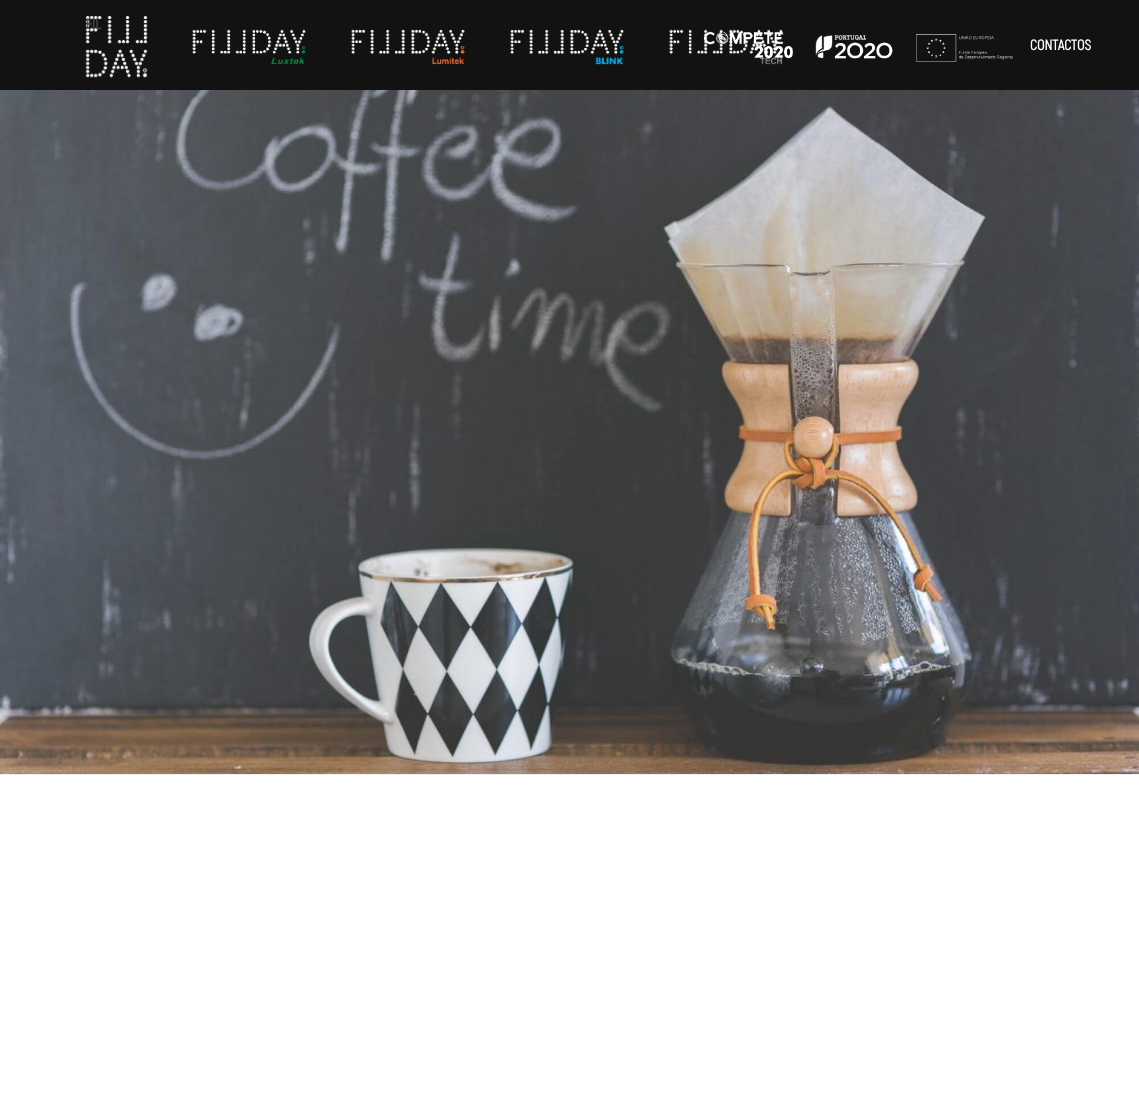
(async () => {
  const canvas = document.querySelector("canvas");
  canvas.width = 1139;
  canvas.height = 1097;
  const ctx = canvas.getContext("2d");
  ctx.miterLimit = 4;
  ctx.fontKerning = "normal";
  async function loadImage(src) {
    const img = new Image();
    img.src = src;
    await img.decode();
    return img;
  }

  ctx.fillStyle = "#ffffff";
  ctx.fillRect(0, 0, 1139, 1097);
  ctx.fillStyle = "#121212";
  ctx.fillRect(0, 0, 1139, 90);
  ctx.drawImage(await loadImage("img/1.png"), 85, 16, 63, 62);
  ctx.drawImage(await loadImage("img/2.png"), 192, 29, 114, 36);
  ctx.drawImage(await loadImage("img/3.png"), 351, 29, 114, 36);
  ctx.drawImage(await loadImage("img/4.png"), 510, 29, 114, 36);
  ctx.drawImage(await loadImage("img/5.png"), 669, 29, 114, 36);
  ctx.drawImage(await loadImage("img/6.png"), 703, 31, 310, 31);
  ctx.fillStyle = "#eeeeee";
  ctx.fillRect(0, 774, 1139, 1);
  ctx.drawImage(await loadImage("img/7.png"), 0, 90, 1139, 684);
  ctx.font = "bold 14.5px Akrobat";
  ctx.fillStyle = "#4a4a4a";
  ctx.fillText("FIL", 86, 29);
  ctx.fillStyle = "#ffffff";
  ctx.fillText("CONTACTOS", 1030, 50);
})();
